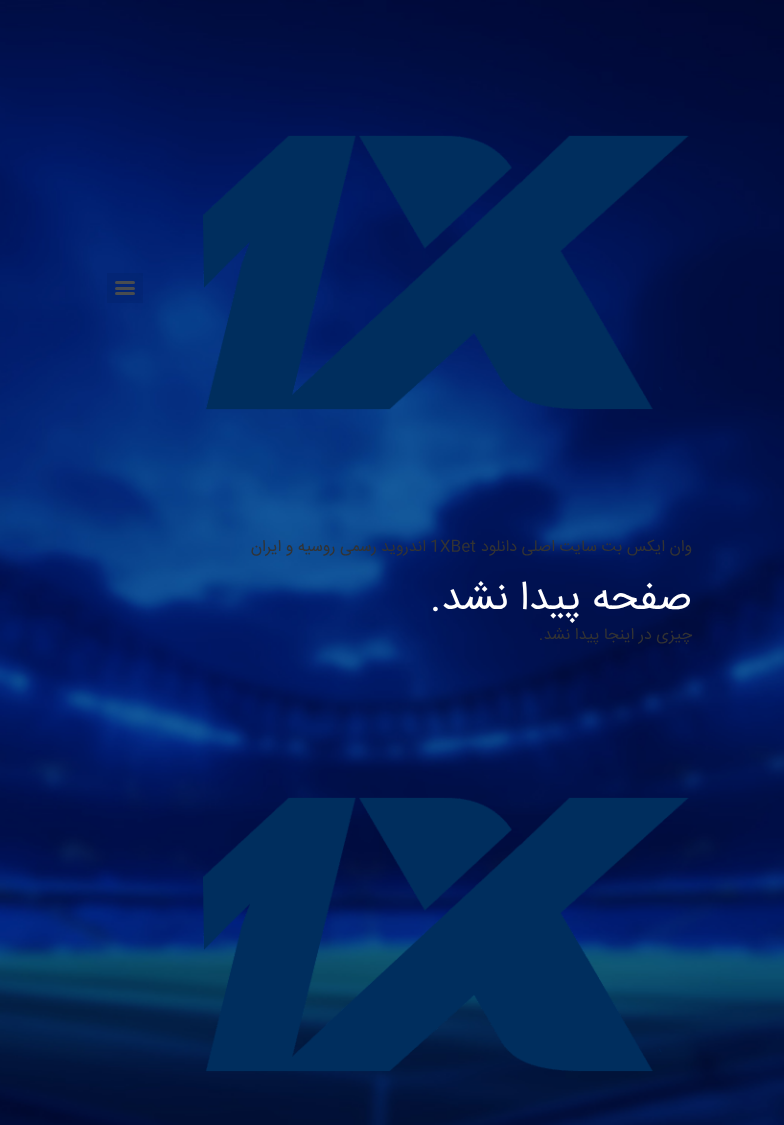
(async () => {
  const canvas = document.querySelector("canvas");
  canvas.width = 784;
  canvas.height = 1125;
  const ctx = canvas.getContext("2d");
  ctx.miterLimit = 4;
  ctx.fontKerning = "normal";
  async function loadImage(src) {
    const img = new Image();
    img.src = src;
    await img.decode();
    return img;
  }

  ctx.fillStyle = "#ffffff";
  ctx.fillRect(0, 0, 784, 1125);
  ctx.drawImage(await loadImage("img/1.png"), 0, 0, 784, 1125);
  ctx.fillStyle = "rgba(0, 0, 0, 0.05)";
  ctx.fillRect(107, 273, 36, 30);
  ctx.fillStyle = "#494c4f";
  ctx.beginPath();
  ctx.roundRect(115, 287, 20, 3, 1.5);
  ctx.fill();
  ctx.beginPath();
  ctx.roundRect(115, 281, 20, 3, 1.5);
  ctx.fill();
  ctx.beginPath();
  ctx.roundRect(115, 292, 20, 3, 1.5);
  ctx.fill();
  ctx.drawImage(await loadImage("img/2.png"), 203, 135, 486, 275);
  ctx.drawImage(await loadImage("img/3.png"), 203, 797, 486, 275);
  ctx.direction = "rtl";
  ctx.font = "16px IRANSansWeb";
  ctx.fillStyle = "#333333";
  ctx.fillText("وان ایکس بت سایت اصلی دانلود", 692, 551);
  ctx.direction = "ltr";
  ctx.fillText("1XBet", 430, 551);
  ctx.direction = "rtl";
  ctx.fillText("اندروید رسمی روسیه و ایران", 426, 551);
  ctx.font = "40px IRANSansWeb";
  ctx.fillStyle = "#ffffff";
  ctx.fillText("صفحه پیدا نشد.", 692, 609);
  ctx.font = "16px IRANSansWeb";
  ctx.fillStyle = "#333333";
  ctx.fillText("چیزی در اینجا پیدا نشد.", 692, 639);
})();
